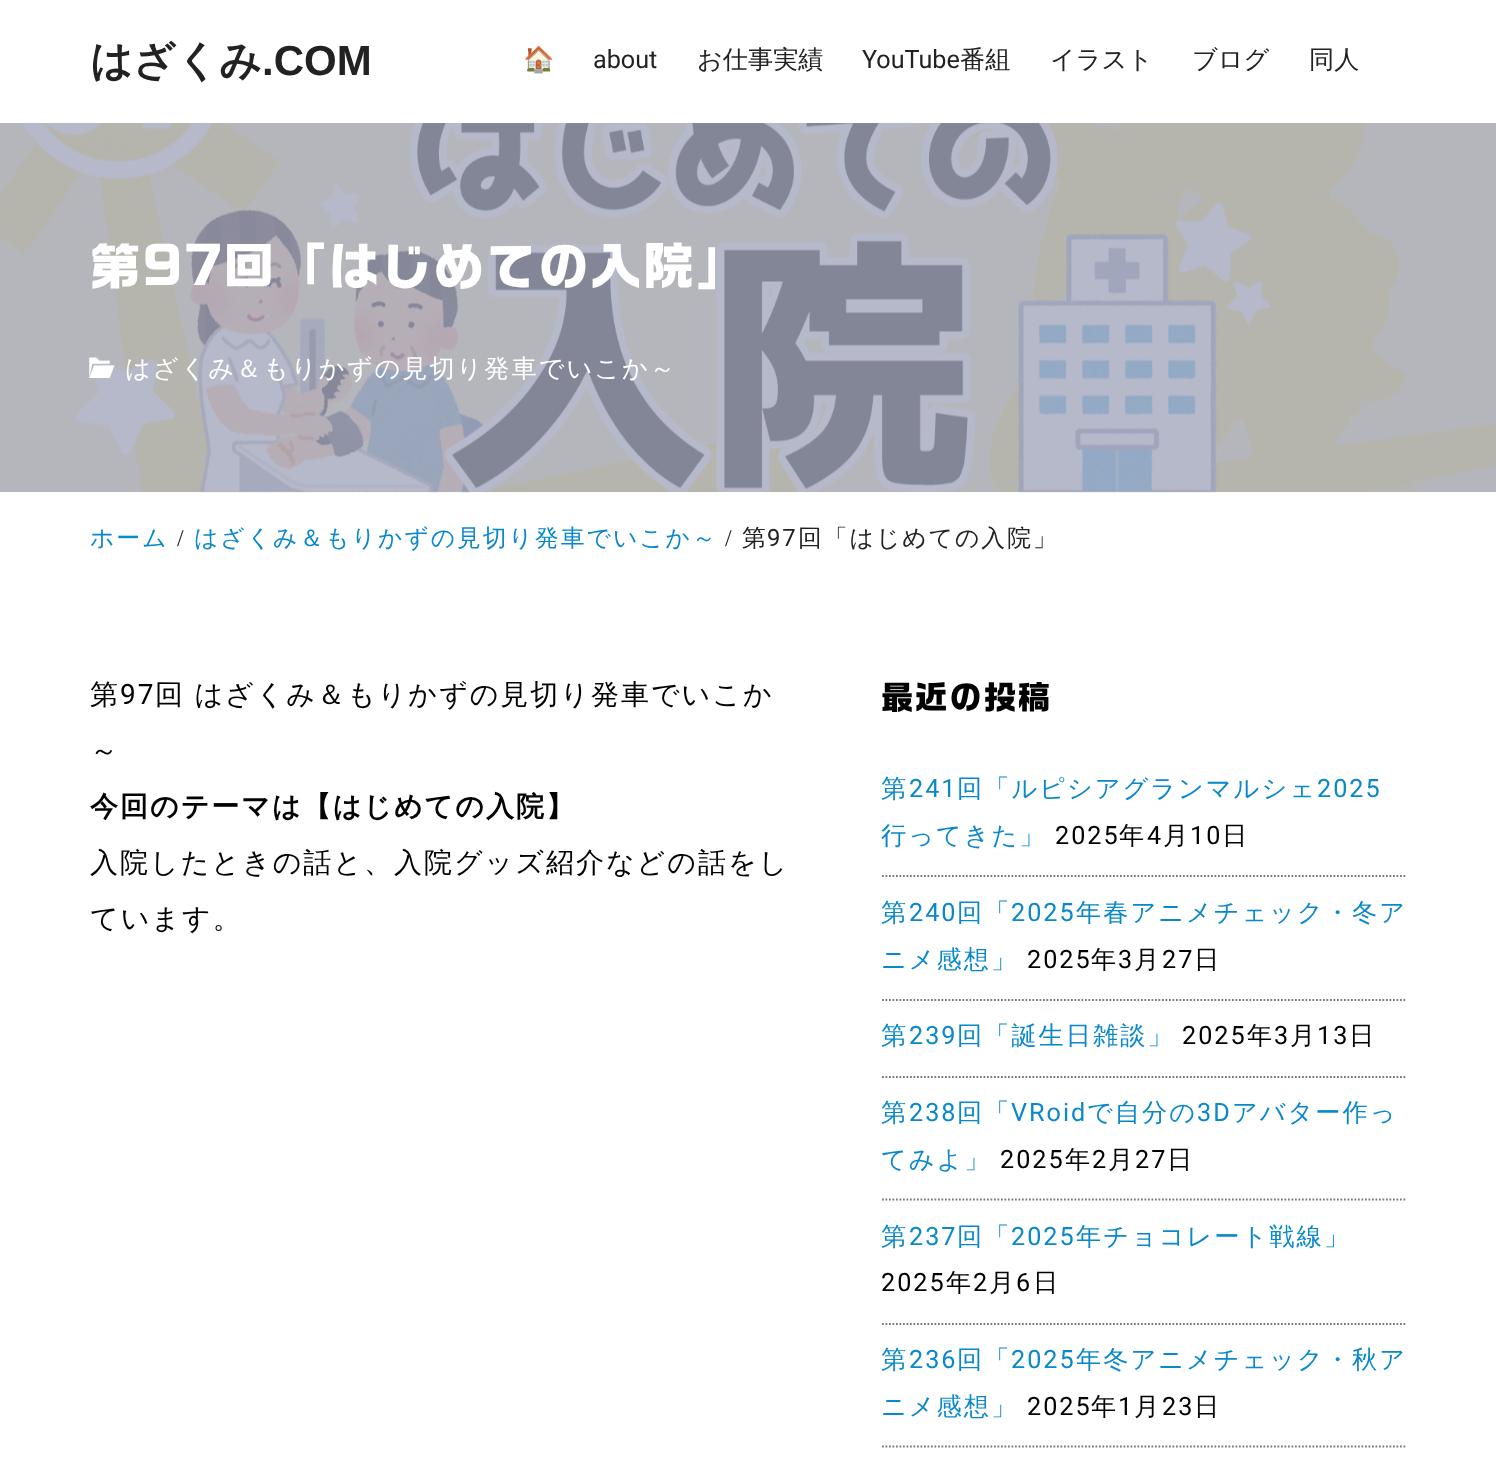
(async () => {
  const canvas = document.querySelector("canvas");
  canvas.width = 1496;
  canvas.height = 1463;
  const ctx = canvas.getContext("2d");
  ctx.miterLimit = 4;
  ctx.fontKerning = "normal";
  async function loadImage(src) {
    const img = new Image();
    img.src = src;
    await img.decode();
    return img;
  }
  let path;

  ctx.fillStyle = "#ffffff";
  ctx.fillRect(0, 0, 1496, 1463);
  ctx.fillStyle = "#b6b9c9";
  ctx.fillRect(0, 491, 1496, 1);
  ctx.drawImage(await loadImage("img/1.png"), 0, 123, 1496, 370);
  ctx.drawImage(await loadImage("img/2.png"), 89, 357, 26, 21);
  path = new Path2D("M882 876H1407");
  ctx.strokeStyle = "#777777";
  ctx.lineWidth = 1.8;
  ctx.setLineDash([1.75, 1.75]);
  ctx.stroke(path);
  path = new Path2D("M882 1000H1407");
  ctx.stroke(path);
  path = new Path2D("M882 1077H1407");
  ctx.stroke(path);
  path = new Path2D("M882 1199.5H1407");
  ctx.stroke(path);
  path = new Path2D("M882 1324H1407");
  ctx.stroke(path);
  path = new Path2D("M882 1446.5H1407");
  ctx.stroke(path);
  ctx.font = "bold 42px WenQuanYi Zen Hei";
  ctx.fillStyle = "#222222";
  ctx.fillText("はざくみ", 90, 75);
  ctx.font = "bold 42px Liberation Sans";
  ctx.fillText(".COM", 262, 75);
  ctx.font = "25.2px Noto Color Emoji";
  ctx.fillText("🏠", 523, 68);
  ctx.font = "25.2px Roboto";
  ctx.fillText("about", 593, 68);
  ctx.font = "500 25.2px WenQuanYi Zen Hei";
  ctx.fillText("お仕事実績", 697, 68);
  ctx.font = "25.2px Roboto";
  ctx.fillText("YouTube", 862, 68);
  ctx.font = "500 25.2px WenQuanYi Zen Hei";
  for (const [text, x, y] of [
    ["番組", 960, 68],
    ["イラスト", 1050, 68],
    ["ブログ", 1192, 68],
    ["同人", 1309, 68],
  ]) {
    ctx.fillText(text, x, y);
  }
  ctx.letterSpacing = "2px";
  ctx.font = "50.4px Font";
  ctx.fillStyle = "#ffffff";
  ctx.fillText("第97回「はじめての入院」", 90, 285);
  ctx.font = "500 25.2px WenQuanYi Zen Hei";
  ctx.fillText("はざくみ＆もりかずの見切り発車でいこか～", 125, 377);
  ctx.font = "500 23.8px WenQuanYi Zen Hei";
  ctx.fillStyle = "#0a88cc";
  ctx.fillText("ホーム", 90, 546);
  ctx.font = "23.8px Liberation Serif";
  ctx.fillStyle = "#222222";
  ctx.fillText("/", 177, 546);
  ctx.font = "500 23.8px WenQuanYi Zen Hei";
  ctx.fillStyle = "#0a88cc";
  ctx.fillText("はざくみ＆もりかずの見切り発車でいこか～", 194, 546);
  ctx.font = "23.8px Liberation Serif";
  ctx.fillStyle = "#222222";
  ctx.fillText("/", 725, 546);
  ctx.font = "500 23.8px WenQuanYi Zen Hei";
  ctx.fillText("第", 742, 546);
  ctx.font = "23.8px Roboto";
  ctx.fillText("97", 767, 546);
  ctx.font = "500 23.8px WenQuanYi Zen Hei";
  ctx.fillText("回「はじめての入院」", 798, 546);
  ctx.font = "500 28px WenQuanYi Zen Hei";
  ctx.fillStyle = "#020202";
  ctx.fillText("第", 90, 704);
  ctx.font = "28px Roboto";
  ctx.fillText("97", 120, 704);
  ctx.wordSpacing = "-1px";
  ctx.font = "500 28px WenQuanYi Zen Hei";
  ctx.fillText("回 はざくみ＆もりかずの見切り発車でいこか", 155, 704);
  ctx.wordSpacing = "0px";
  ctx.fillText("～", 90, 760);
  ctx.font = "bold 28px WenQuanYi Zen Hei";
  ctx.fillText("今回のテーマは【はじめての入院】", 90, 816);
  ctx.font = "500 28px WenQuanYi Zen Hei";
  ctx.fillText("入院したときの話と、入院グッズ紹介などの話をし", 90, 872);
  ctx.fillText("ています。", 90, 928);
  ctx.font = "32.25px Font";
  ctx.fillText("最近の投稿", 881, 709);
  ctx.font = "500 25.2px WenQuanYi Zen Hei";
  ctx.fillStyle = "#0a88cc";
  ctx.fillText("第", 881, 797);
  ctx.font = "25.2px Roboto";
  ctx.fillText("241", 909, 797);
  ctx.font = "500 25.2px WenQuanYi Zen Hei";
  ctx.fillText("回「ルピシアグランマルシェ", 957, 797);
  ctx.font = "25.2px Roboto";
  ctx.fillText("2025", 1317, 797);
  ctx.font = "500 25.2px WenQuanYi Zen Hei";
  ctx.fillText("行ってきた」", 881, 844);
  ctx.font = "25.2px Roboto";
  ctx.fillStyle = "#020202";
  ctx.fillText("2025", 1055, 844);
  ctx.font = "500 25.2px WenQuanYi Zen Hei";
  ctx.fillText("年", 1119, 844);
  ctx.font = "25.2px Roboto";
  ctx.fillText("4", 1147, 844);
  ctx.font = "500 25.2px WenQuanYi Zen Hei";
  ctx.fillText("月", 1163, 844);
  ctx.font = "25.2px Roboto";
  ctx.fillText("10", 1190, 844);
  ctx.font = "500 25.2px WenQuanYi Zen Hei";
  ctx.fillText("日", 1222, 844);
  ctx.fillStyle = "#0a88cc";
  ctx.fillText("第", 881, 921);
  ctx.font = "25.2px Roboto";
  ctx.fillText("240", 909, 921);
  ctx.font = "500 25.2px WenQuanYi Zen Hei";
  ctx.fillText("回「", 957, 921);
  ctx.font = "25.2px Roboto";
  ctx.fillText("2025", 1011, 921);
  ctx.font = "500 25.2px WenQuanYi Zen Hei";
  ctx.fillText("年春アニメチェック・冬ア", 1076, 921);
  ctx.fillText("ニメ感想」", 881, 968);
  ctx.font = "25.2px Roboto";
  ctx.fillStyle = "#020202";
  ctx.fillText("2025", 1027, 968);
  ctx.font = "500 25.2px WenQuanYi Zen Hei";
  ctx.fillText("年", 1091, 968);
  ctx.font = "25.2px Roboto";
  ctx.fillText("3", 1118, 968);
  ctx.font = "500 25.2px WenQuanYi Zen Hei";
  ctx.fillText("月", 1134, 968);
  ctx.font = "25.2px Roboto";
  ctx.fillText("27", 1162, 968);
  ctx.font = "500 25.2px WenQuanYi Zen Hei";
  ctx.fillText("日", 1194, 968);
  ctx.fillStyle = "#0a88cc";
  ctx.fillText("第", 881, 1044);
  ctx.font = "25.2px Roboto";
  ctx.fillText("239", 909, 1044);
  ctx.font = "500 25.2px WenQuanYi Zen Hei";
  ctx.fillText("回「誕生日雑談」", 957, 1044);
  ctx.font = "25.2px Roboto";
  ctx.fillStyle = "#020202";
  ctx.fillText("2025", 1182, 1044);
  ctx.font = "500 25.2px WenQuanYi Zen Hei";
  ctx.fillText("年", 1247, 1044);
  ctx.font = "25.2px Roboto";
  ctx.fillText("3", 1274, 1044);
  ctx.font = "500 25.2px WenQuanYi Zen Hei";
  ctx.fillText("月", 1290, 1044);
  ctx.font = "25.2px Roboto";
  ctx.fillText("13", 1317, 1044);
  ctx.font = "500 25.2px WenQuanYi Zen Hei";
  ctx.fillText("日", 1349, 1044);
  ctx.fillStyle = "#0a88cc";
  ctx.fillText("第", 881, 1121);
  ctx.font = "25.2px Roboto";
  ctx.fillText("238", 909, 1121);
  ctx.font = "500 25.2px WenQuanYi Zen Hei";
  ctx.fillText("回「", 957, 1121);
  ctx.font = "25.2px Roboto";
  ctx.fillText("VRoid", 1011, 1121);
  ctx.font = "500 25.2px WenQuanYi Zen Hei";
  ctx.fillText("で自分の", 1087, 1121);
  ctx.font = "25.2px Roboto";
  ctx.fillText("3D", 1197, 1121);
  ctx.font = "500 25.2px WenQuanYi Zen Hei";
  ctx.fillText("アバター作っ", 1232, 1121);
  ctx.fillText("てみよ」", 881, 1168);
  ctx.font = "25.2px Roboto";
  ctx.fillStyle = "#020202";
  ctx.fillText("2025", 1000, 1168);
  ctx.font = "500 25.2px WenQuanYi Zen Hei";
  ctx.fillText("年", 1065, 1168);
  ctx.font = "25.2px Roboto";
  ctx.fillText("2", 1092, 1168);
  ctx.font = "500 25.2px WenQuanYi Zen Hei";
  ctx.fillText("月", 1108, 1168);
  ctx.font = "25.2px Roboto";
  ctx.fillText("27", 1135, 1168);
  ctx.font = "500 25.2px WenQuanYi Zen Hei";
  ctx.fillText("日", 1167, 1168);
  ctx.fillStyle = "#0a88cc";
  ctx.fillText("第", 881, 1245);
  ctx.font = "25.2px Roboto";
  ctx.fillText("237", 909, 1245);
  ctx.font = "500 25.2px WenQuanYi Zen Hei";
  ctx.fillText("回「", 957, 1245);
  ctx.font = "25.2px Roboto";
  ctx.fillText("2025", 1011, 1245);
  ctx.font = "500 25.2px WenQuanYi Zen Hei";
  ctx.fillText("年チョコレート戦線」", 1076, 1245);
  ctx.font = "25.2px Roboto";
  ctx.fillStyle = "#020202";
  ctx.fillText("2025", 881, 1291);
  ctx.font = "500 25.2px WenQuanYi Zen Hei";
  ctx.fillText("年", 946, 1291);
  ctx.font = "25.2px Roboto";
  ctx.fillText("2", 973, 1291);
  ctx.font = "500 25.2px WenQuanYi Zen Hei";
  ctx.fillText("月", 989, 1291);
  ctx.font = "25.2px Roboto";
  ctx.fillText("6", 1016, 1291);
  ctx.font = "500 25.2px WenQuanYi Zen Hei";
  ctx.fillText("日", 1033, 1291);
  ctx.fillStyle = "#0a88cc";
  ctx.fillText("第", 881, 1368);
  ctx.font = "25.2px Roboto";
  ctx.fillText("236", 909, 1368);
  ctx.font = "500 25.2px WenQuanYi Zen Hei";
  ctx.fillText("回「", 957, 1368);
  ctx.font = "25.2px Roboto";
  ctx.fillText("2025", 1011, 1368);
  ctx.font = "500 25.2px WenQuanYi Zen Hei";
  ctx.fillText("年冬アニメチェック・秋ア", 1076, 1368);
  ctx.fillText("ニメ感想」", 881, 1415);
  ctx.font = "25.2px Roboto";
  ctx.fillStyle = "#020202";
  ctx.fillText("2025", 1027, 1415);
  ctx.font = "500 25.2px WenQuanYi Zen Hei";
  ctx.fillText("年", 1091, 1415);
  ctx.font = "25.2px Roboto";
  ctx.fillText("1", 1118, 1415);
  ctx.font = "500 25.2px WenQuanYi Zen Hei";
  ctx.fillText("月", 1134, 1415);
  ctx.font = "25.2px Roboto";
  ctx.fillText("23", 1162, 1415);
  ctx.font = "500 25.2px WenQuanYi Zen Hei";
  ctx.fillText("日", 1194, 1415);
})();
